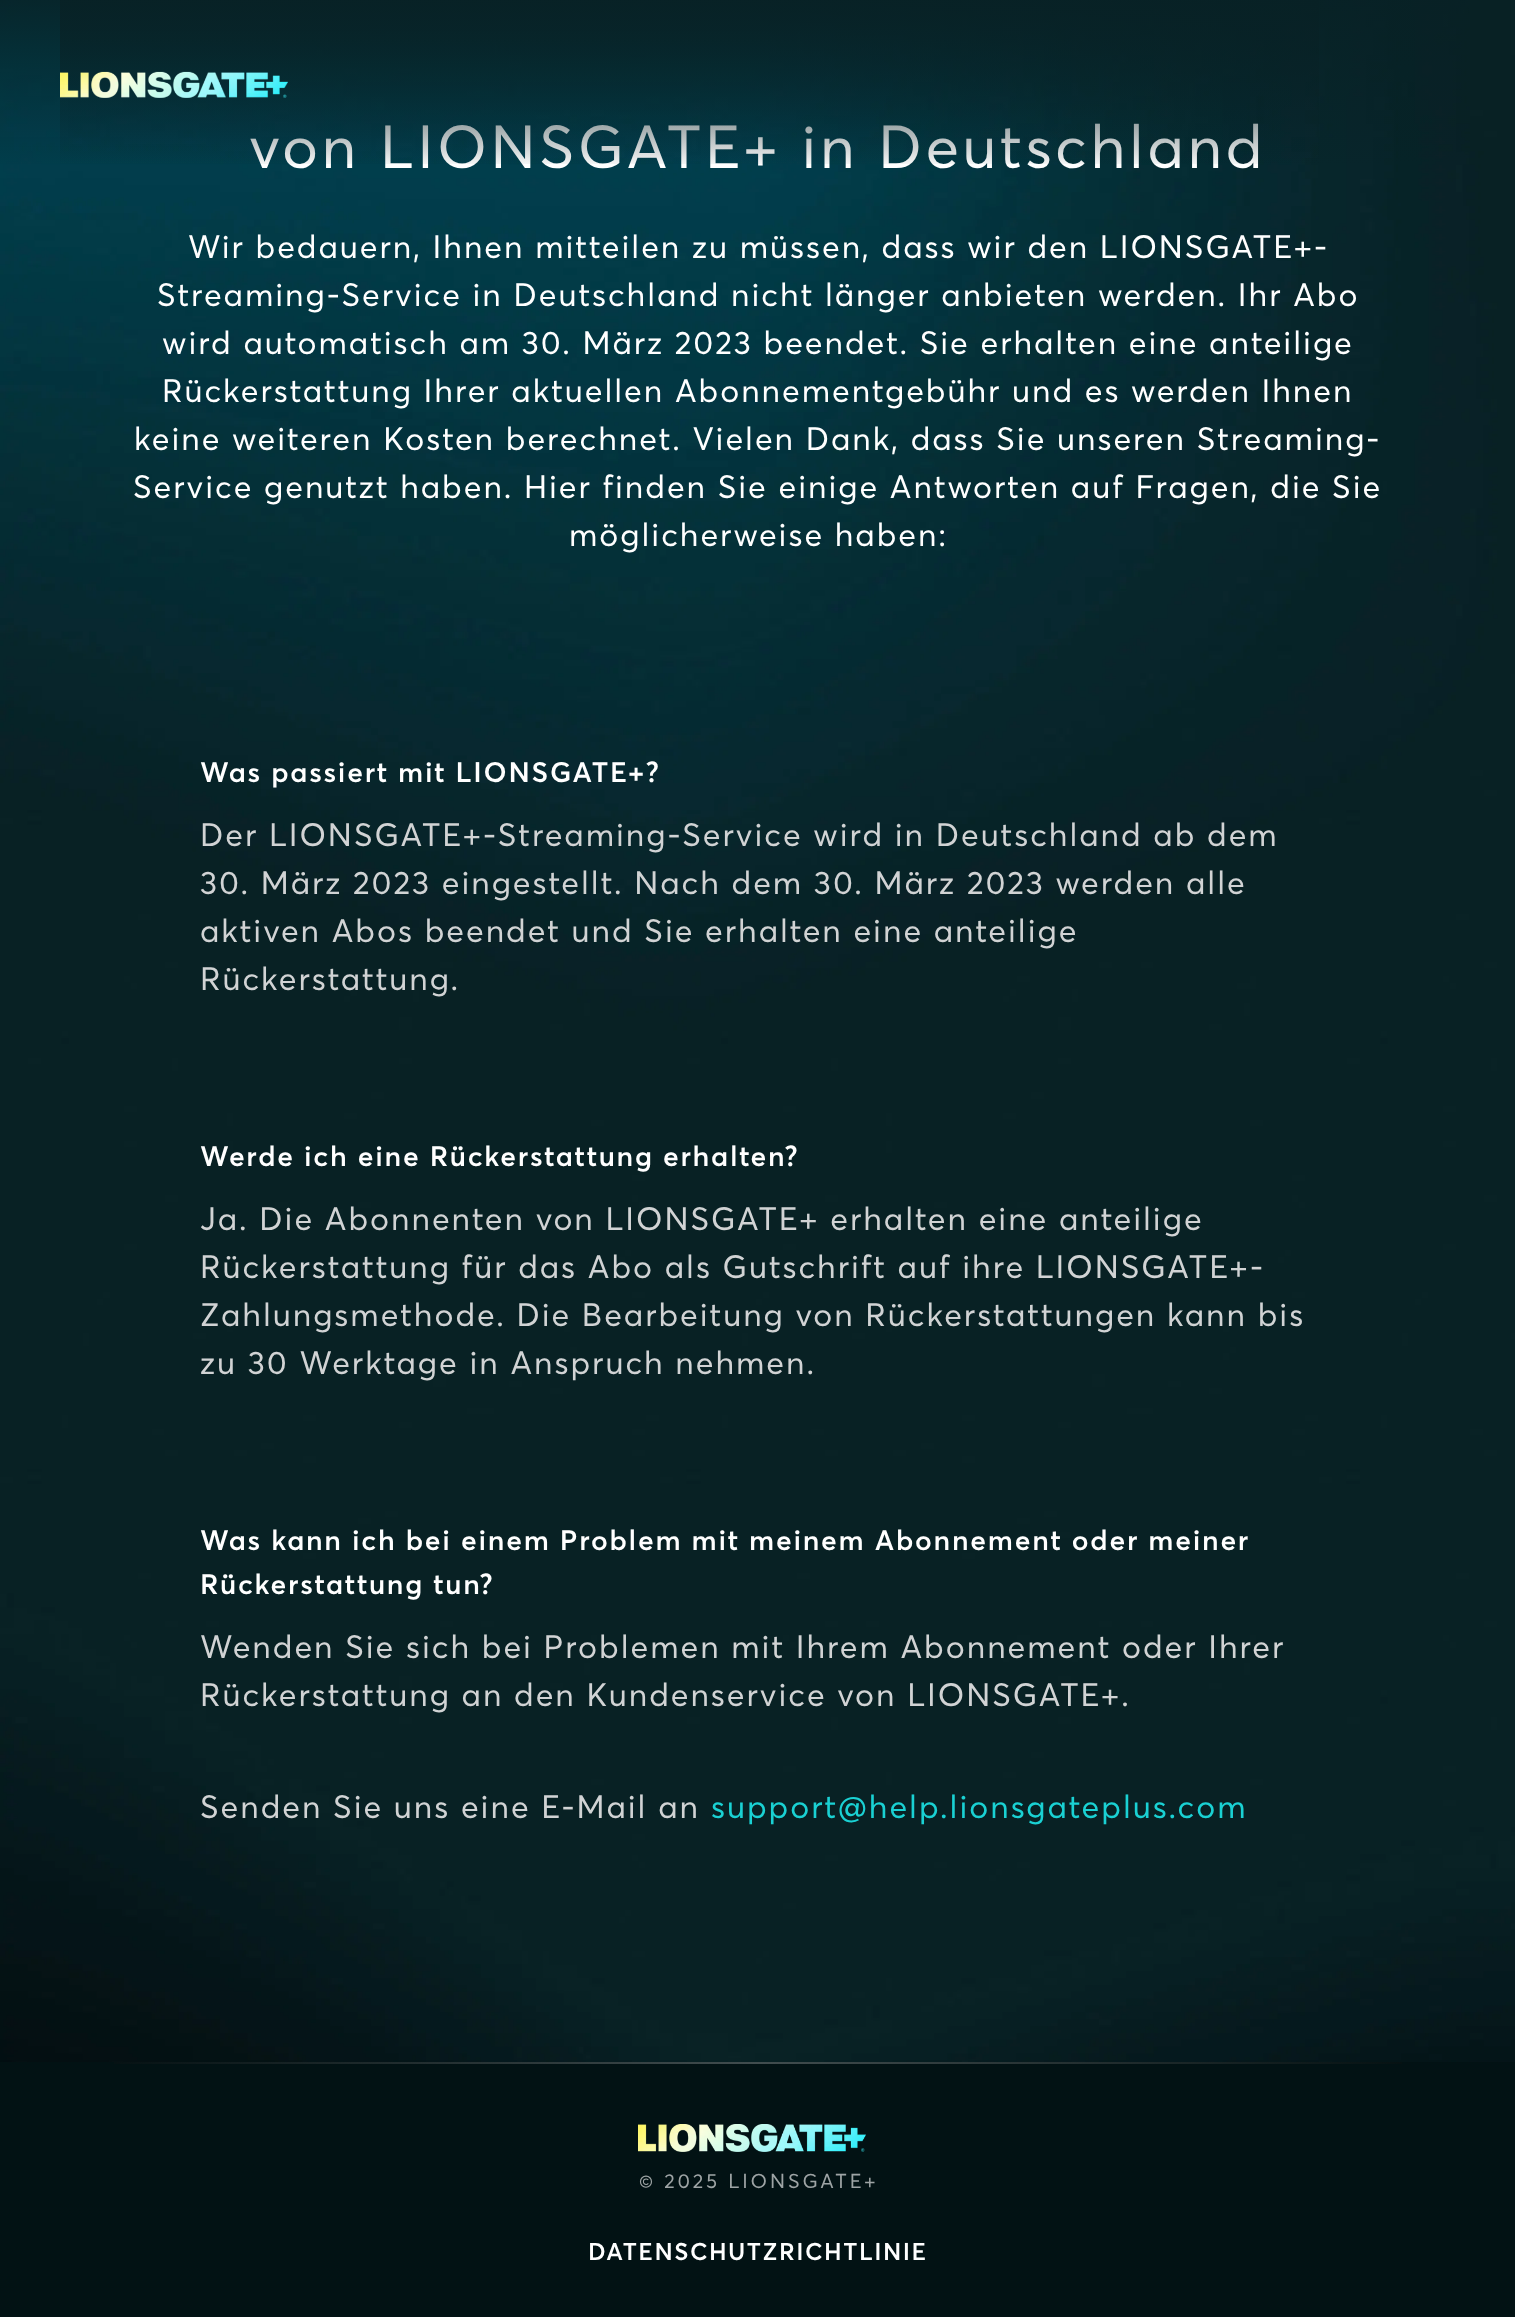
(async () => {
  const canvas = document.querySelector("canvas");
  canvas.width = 1515;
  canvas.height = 2317;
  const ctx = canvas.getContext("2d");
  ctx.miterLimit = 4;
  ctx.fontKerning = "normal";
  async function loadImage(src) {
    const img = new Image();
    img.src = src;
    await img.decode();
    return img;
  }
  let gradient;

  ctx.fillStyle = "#ffffff";
  ctx.fillRect(0, 0, 1515, 2317);
  ctx.drawImage(await loadImage("img/1.png"), 0, 0, 1515, 2062);
  ctx.fillStyle = "#021214";
  ctx.fillRect(0, 2062, 1515, 255);
  gradient = ctx.createLinearGradient(114, 2063, 1402, 2063);
  gradient.addColorStop(0, "#061214");
  gradient.addColorStop(0.5, "#414d4f");
  gradient.addColorStop(1, "#061213");
  gradient.addColorStop(1, "#051113");
  ctx.fillStyle = gradient;
  ctx.fillRect(114, 2062, 1288, 2);
  ctx.drawImage(await loadImage("img/3.png"), 638, 2124, 228, 28);
  ctx.letterSpacing = "3.75px";
  ctx.font = "60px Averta";
  ctx.fillStyle = "#ffffff";
  ctx.fillText("von LIONSGATE+ in Deutschland", 249, 168);
  gradient = ctx.createLinearGradient(758, 170, 758, 0);
  gradient.addColorStop(0.01, "rgba(8, 33, 37, 0)");
  gradient.addColorStop(0.99, "rgba(8, 33, 37, 0.85)");
  ctx.fillStyle = gradient;
  ctx.fillRect(0, 0, 1470, 164);
  ctx.fillRect(60, 0, 1259, 164);
  ctx.drawImage(await loadImage("img/2.png"), 60, 71, 228, 27);
  ctx.letterSpacing = "2px";
  ctx.font = "32px Averta";
  ctx.fillStyle = "#ffffff";
  for (const [text, x, y] of [
    ["Wir bedauern, Ihnen mitteilen zu müssen, dass wir den LIONSGATE+-", 188, 258],
    ["Streaming-Service in Deutschland nicht länger anbieten werden. Ihr Abo", 157, 306],
    ["wird automatisch am 30. März 2023 beendet. Sie erhalten eine anteilige", 162, 354],
    ["Rückerstattung Ihrer aktuellen Abonnementgebühr und es werden Ihnen", 162, 402],
    ["keine weiteren Kosten berechnet. Vielen Dank, dass Sie unseren Streaming-", 134, 450],
    ["Service genutzt haben. Hier finden Sie einige Antworten auf Fragen, die Sie", 133, 498],
    ["möglicherweise haben:", 569, 546],
  ]) {
    ctx.fillText(text, x, y);
  }
  ctx.letterSpacing = "1.75px";
  ctx.font = "600 28px Averta";
  ctx.fillText("Was passiert mit LIONSGATE+?", 200, 782);
  ctx.letterSpacing = "2px";
  ctx.font = "32px Averta";
  ctx.fillStyle = "#d1d3d4";
  for (const [text, x, y] of [
    ["Der LIONSGATE+-Streaming-Service wird in Deutschland ab dem", 200, 846],
    ["30. März 2023 eingestellt. Nach dem 30. März 2023 werden alle", 200, 894],
    ["aktiven Abos beendet und Sie erhalten eine anteilige", 200, 942],
    ["Rückerstattung.", 200, 990],
  ]) {
    ctx.fillText(text, x, y);
  }
  ctx.letterSpacing = "1.75px";
  ctx.font = "600 28px Averta";
  ctx.fillStyle = "#ffffff";
  ctx.fillText("Werde ich eine Rückerstattung erhalten?", 200, 1166);
  ctx.letterSpacing = "2px";
  ctx.font = "32px Averta";
  ctx.fillStyle = "#d1d3d4";
  for (const [text, x, y] of [
    ["Ja. Die Abonnenten von LIONSGATE+ erhalten eine anteilige", 200, 1230],
    ["Rückerstattung für das Abo als Gutschrift auf ihre LIONSGATE+-", 200, 1278],
    ["Zahlungsmethode. Die Bearbeitung von Rückerstattungen kann bis", 200, 1326],
    ["zu 30 Werktage in Anspruch nehmen.", 200, 1374],
  ]) {
    ctx.fillText(text, x, y);
  }
  ctx.letterSpacing = "1.75px";
  ctx.font = "600 28px Averta";
  ctx.fillStyle = "#ffffff";
  ctx.fillText("Was kann ich bei einem Problem mit meinem Abonnement oder meiner", 200, 1550);
  ctx.fillText("Rückerstattung tun?", 200, 1594);
  ctx.letterSpacing = "2px";
  ctx.font = "32px Averta";
  ctx.fillStyle = "#d1d3d4";
  for (const [text, x, y] of [
    ["Wenden Sie sich bei Problemen mit Ihrem Abonnement oder Ihrer", 200, 1658],
    ["Rückerstattung an den Kundenservice von LIONSGATE+.", 200, 1706],
    ["Senden Sie uns eine E-Mail an", 200, 1818],
  ]) {
    ctx.fillText(text, x, y);
  }
  ctx.fillStyle = "#1ad1d3";
  ctx.fillText("support@help.lionsgateplus.com", 711, 1818);
  ctx.letterSpacing = "2.9px";
  ctx.font = "20px Averta";
  ctx.fillStyle = "#9ea4a5";
  ctx.fillText("© 2025 LIONSGATE+", 639, 2188);
  ctx.letterSpacing = "1.5px";
  ctx.font = "600 24px Averta";
  ctx.fillStyle = "#ffffff";
  ctx.fillText("DATENSCHUTZRICHTLINIE", 588, 2260);
})();
